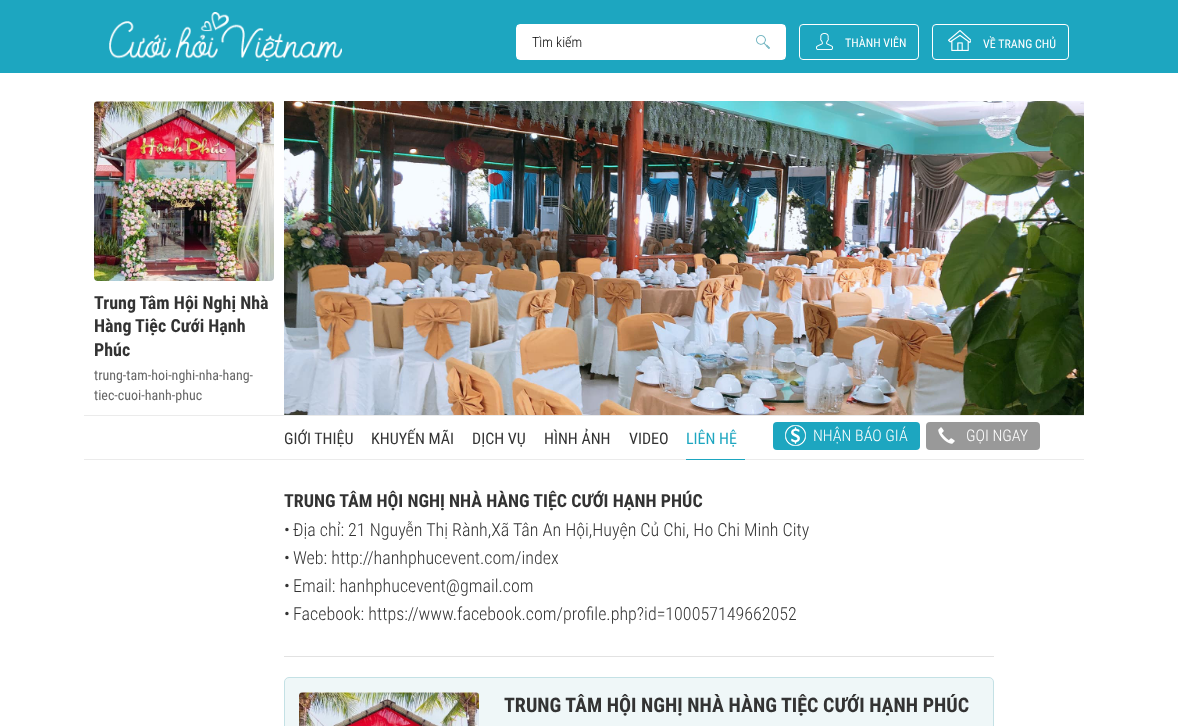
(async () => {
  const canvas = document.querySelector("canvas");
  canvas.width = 1178;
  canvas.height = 726;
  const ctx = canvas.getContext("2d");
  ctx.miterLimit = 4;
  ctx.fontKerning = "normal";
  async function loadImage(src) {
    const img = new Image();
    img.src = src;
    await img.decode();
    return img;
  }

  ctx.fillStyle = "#ffffff";
  ctx.fillRect(0, 0, 1178, 726);
  ctx.fillStyle = "#1da6c0";
  ctx.fillRect(0, 0, 1178, 73);
  ctx.drawImage(await loadImage("img/1.png"), 109, 12, 233, 49);
  ctx.beginPath();
  ctx.roundRect(516.5, 24.5, 269, 35, 3.5);
  ctx.strokeStyle = "#ffffff";
  ctx.stroke();
  ctx.fillStyle = "#ffffff";
  ctx.fillRect(517, 25, 268, 34);
  ctx.drawImage(await loadImage("img/2.png"), 756, 35, 14, 14);
  ctx.beginPath();
  ctx.roundRect(799.5, 24.5, 119, 35, 3.5);
  ctx.stroke();
  ctx.drawImage(await loadImage("img/3.png"), 816, 33, 17, 17);
  ctx.beginPath();
  ctx.roundRect(932.5, 24.5, 136, 35, 3.5);
  ctx.stroke();
  ctx.drawImage(await loadImage("img/4.png"), 948, 30, 23, 21);
  ctx.drawImage(await loadImage("img/5.png"), 94, 101, 180, 180);
  ctx.drawImage(await loadImage("img/6.png"), 284, 101, 800, 314);
  for (const [x, y, w, h, color] of [
    [84, 415, 1000, 1, "#ebebeb"],
    [84, 459, 1000, 1, "#ebebeb"],
    [686, 459, 59, 1, "#1da6c0"],
  ]) {
    ctx.fillStyle = color;
    ctx.fillRect(x, y, w, h);
  }
  ctx.beginPath();
  ctx.roundRect(773, 422, 147, 28, 4);
  ctx.fill();
  ctx.drawImage(await loadImage("img/7.png"), 785, 425, 21, 21);
  ctx.fillStyle = "#999999";
  ctx.beginPath();
  ctx.roundRect(926, 422, 114, 28, 4);
  ctx.fill();
  ctx.drawImage(await loadImage("img/8.png"), 938, 427, 17, 17);
  ctx.fillStyle = "#e2e2e2";
  ctx.fillRect(284, 656, 710, 1);
  ctx.fillStyle = "#eff7f8";
  ctx.beginPath();
  ctx.roundRect(284.5, 677.5, 709, 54, 4.5);
  ctx.fill();
  ctx.strokeStyle = "#c4e1e5";
  ctx.stroke();
  ctx.drawImage(await loadImage("img/9.png"), 299, 692, 180, 34);
  ctx.font = "300 14px Roboto Condensed";
  ctx.fillStyle = "#000000";
  ctx.fillText("Tìm kiếm", 532, 47);
  ctx.font = "12px Roboto Condensed";
  ctx.fillStyle = "#ffffff";
  ctx.fillText("THÀNH VIÊN", 845, 47);
  ctx.fillText("VỀ TRANG CHỦ", 983, 48);
  ctx.font = "bold 18px Roboto Condensed";
  ctx.fillStyle = "#333333";
  for (const [text, x, y] of [
    ["Trung Tâm Hội Nghị Nhà", 94, 309],
    ["Hàng Tiệc Cưới Hạnh", 94, 332],
    ["Phúc", 94, 356],
  ]) {
    ctx.fillText(text, x, y);
  }
  ctx.font = "14px Roboto Condensed";
  ctx.fillStyle = "#666666";
  ctx.fillText("trung-tam-hoi-nghi-nha-hang-", 94, 380);
  ctx.fillText("tiec-cuoi-hanh-phuc", 94, 400);
  ctx.font = "16px Roboto Condensed";
  ctx.fillStyle = "#333333";
  for (const [text, x, y] of [
    ["GIỚI THIỆU", 284, 444],
    ["KHUYẾN MÃI", 371, 444],
    ["DỊCH VỤ", 472, 444],
    ["HÌNH ẢNH", 544, 444],
    ["VIDEO", 629, 444],
  ]) {
    ctx.fillText(text, x, y);
  }
  ctx.fillStyle = "#1da6c0";
  ctx.fillText("LIÊN HỆ", 686, 444);
  ctx.font = "300 16px Roboto Condensed";
  ctx.fillStyle = "#ffffff";
  ctx.fillText("NHẬN BÁO GIÁ", 813, 441);
  ctx.fillText("GỌI NGAY", 966, 441);
  ctx.font = "bold 18px Roboto Condensed";
  ctx.fillStyle = "#333333";
  ctx.fillText("TRUNG TÂM HỘI NGHỊ NHÀ HÀNG TIỆC CƯỚI HẠNH PHÚC", 284, 507);
  ctx.font = "300 18px Roboto Condensed";
  for (const [text, x, y] of [
    ["•", 284, 536],
    ["Địa chỉ: 21 Nguyễn Thị Rành,Xã Tân An Hội,Huyện Củ Chi, Ho Chi Minh City", 293, 536],
    ["•", 284, 564],
    ["Web: http://hanhphucevent.com/index", 293, 564],
    ["•", 284, 592],
    ["Email: hanhphucevent@gmail.com", 293, 592],
    ["•", 284, 620],
    ["Facebook: https://www.facebook.com/profile.php?id=100057149662052", 293, 620],
  ]) {
    ctx.fillText(text, x, y);
  }
  ctx.font = "bold 20px Roboto Condensed";
  ctx.fillText("TRUNG TÂM HỘI NGHỊ NHÀ HÀNG TIỆC CƯỚI HẠNH PHÚC", 504, 712);
})();
